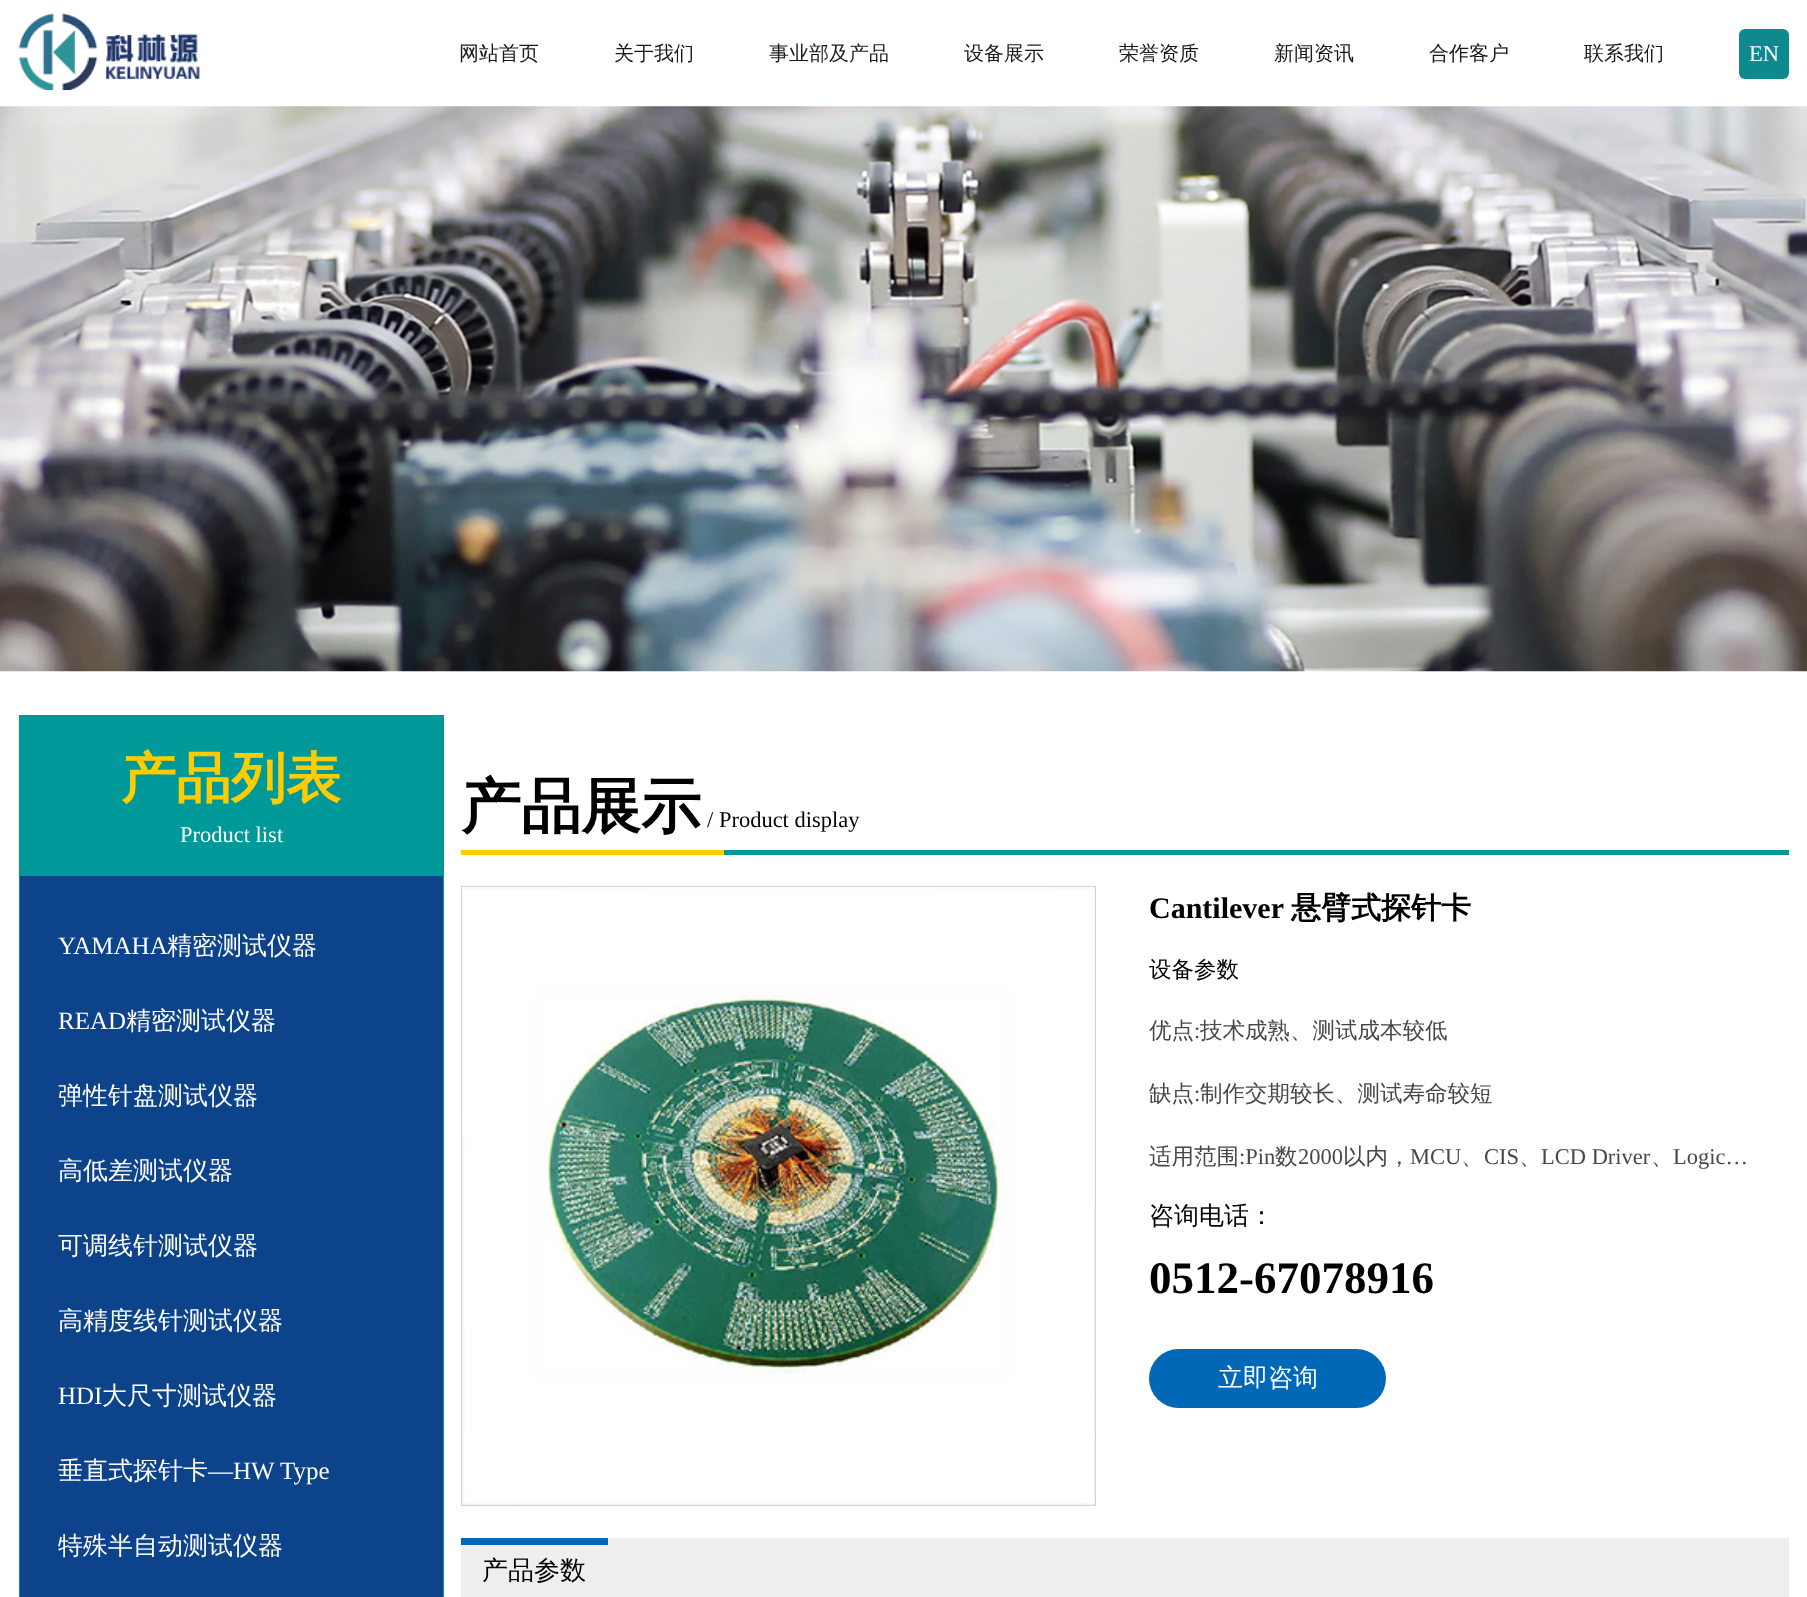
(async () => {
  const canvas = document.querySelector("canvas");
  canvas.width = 1807;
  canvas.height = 1597;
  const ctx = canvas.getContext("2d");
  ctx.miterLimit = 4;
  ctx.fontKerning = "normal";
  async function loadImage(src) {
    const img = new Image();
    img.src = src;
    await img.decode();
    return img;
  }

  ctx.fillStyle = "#ffffff";
  ctx.fillRect(0, 0, 1807, 1597);
  ctx.drawImage(await loadImage("img/1.png"), 18, 13, 182, 77);
  ctx.fillStyle = "#0e898d";
  ctx.beginPath();
  ctx.roundRect(1739, 29, 50, 50, 6);
  ctx.fill();
  ctx.drawImage(await loadImage("img/2.png"), 0, 106, 1807, 566);
  ctx.fillStyle = "#0d438b";
  ctx.fillRect(20, 876, 423, 721);
  ctx.strokeStyle = "#009999";
  ctx.strokeRect(19.5, 715.5, 424, 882);
  for (const [x, y, w, h, color] of [
    [20, 716, 423, 160, "#009999"],
    [724, 850, 1065, 5, "#009999"],
    [461, 850, 263, 5, "#ffcc00"],
  ]) {
    ctx.fillStyle = color;
    ctx.fillRect(x, y, w, h);
  }
  ctx.strokeStyle = "#d2d2d2";
  ctx.strokeRect(461.5, 886.5, 634, 619);
  ctx.drawImage(await loadImage("img/3.png"), 462, 887, 633, 618);
  ctx.fillStyle = "#0068b7";
  ctx.beginPath();
  ctx.roundRect(1149, 1349, 237, 59, 29.5);
  ctx.fill();
  ctx.fillStyle = "#eeeeee";
  ctx.fillRect(461, 1538, 1328, 59);
  ctx.fillStyle = "#0068b7";
  ctx.fillRect(461, 1538, 147, 7);
  ctx.font = "500 20px WenQuanYi Zen Hei";
  ctx.fillStyle = "#1b1818";
  for (const [text, x, y] of [
    ["网站首页", 459, 60],
    ["关于我们", 614, 60],
    ["事业部及产品", 769, 60],
    ["设备展示", 964, 60],
    ["荣誉资质", 1119, 60],
    ["新闻资讯", 1274, 60],
    ["合作客户", 1429, 60],
    ["联系我们", 1584, 60],
  ]) {
    ctx.fillText(text, x, y);
  }
  ctx.font = "22.5px Liberation Serif";
  ctx.fillStyle = "#ffffff";
  ctx.fillText("EN", 1749, 61);
  ctx.font = "bold 55px WenQuanYi Zen Hei";
  ctx.fillStyle = "#ffcc00";
  ctx.fillText("产品列表", 121, 797);
  ctx.font = "22.5px Liberation Serif";
  ctx.fillStyle = "#ffffff";
  ctx.fillText("Product list", 180, 842);
  ctx.font = "25px Liberation Serif";
  ctx.fillText("YAMAHA", 58, 954);
  ctx.font = "500 25px WenQuanYi Zen Hei";
  ctx.fillText("精密测试仪器", 167, 954);
  ctx.font = "25px Liberation Serif";
  ctx.fillText("READ", 58, 1029);
  ctx.font = "500 25px WenQuanYi Zen Hei";
  for (const [text, x, y] of [
    ["精密测试仪器", 126, 1029],
    ["弹性针盘测试仪器", 58, 1104],
    ["高低差测试仪器", 58, 1179],
    ["可调线针测试仪器", 58, 1254],
    ["高精度线针测试仪器", 58, 1329],
  ]) {
    ctx.fillText(text, x, y);
  }
  ctx.font = "25px Liberation Serif";
  ctx.fillText("HDI", 58, 1404);
  ctx.font = "500 25px WenQuanYi Zen Hei";
  ctx.fillText("大尺寸测试仪器", 102, 1404);
  ctx.fillText("垂直式探针卡", 58, 1479);
  ctx.font = "25px Liberation Serif";
  ctx.fillText("—HW Type", 208, 1479);
  ctx.font = "500 25px WenQuanYi Zen Hei";
  ctx.fillText("特殊半自动测试仪器", 58, 1554);
  ctx.font = "bold 60px WenQuanYi Zen Hei";
  ctx.fillStyle = "#000000";
  ctx.fillText("产品展示", 461, 827);
  ctx.font = "22.5px Liberation Serif";
  ctx.fillText("/ Product display", 707, 827);
  ctx.font = "bold 30px Liberation Serif";
  ctx.fillText("Cantilever", 1149, 918);
  ctx.font = "bold 30px WenQuanYi Zen Hei";
  ctx.fillText("悬臂式探针卡", 1291, 918);
  ctx.font = "500 22.5px WenQuanYi Zen Hei";
  ctx.fillText("设备参数", 1149, 977);
  ctx.fillStyle = "#474747";
  ctx.fillText("优点", 1149, 1038);
  ctx.font = "22.5px Liberation Serif";
  ctx.fillText(":", 1194, 1038);
  ctx.font = "500 22.5px WenQuanYi Zen Hei";
  ctx.fillText("技术成熟、测试成本较低", 1200, 1038);
  ctx.fillText("缺点", 1149, 1101);
  ctx.font = "22.5px Liberation Serif";
  ctx.fillText(":", 1194, 1101);
  ctx.font = "500 22.5px WenQuanYi Zen Hei";
  ctx.fillText("制作交期较长、测试寿命较短", 1200, 1101);
  ctx.fillText("适用范围", 1149, 1164);
  ctx.font = "22.5px Liberation Serif";
  ctx.fillText(":Pin", 1239, 1164);
  ctx.font = "500 22.5px WenQuanYi Zen Hei";
  ctx.fillText("数", 1275, 1164);
  ctx.font = "22.5px Liberation Serif";
  ctx.fillText("2000", 1298, 1164);
  ctx.font = "500 22.5px WenQuanYi Zen Hei";
  ctx.fillText("以内，", 1343, 1164);
  ctx.font = "22.5px Liberation Serif";
  ctx.fillText("MCU", 1410, 1164);
  ctx.font = "500 22.5px WenQuanYi Zen Hei";
  ctx.fillText("、", 1461, 1164);
  ctx.font = "22.5px Liberation Serif";
  ctx.fillText("CIS", 1484, 1164);
  ctx.font = "500 22.5px WenQuanYi Zen Hei";
  ctx.fillText("、", 1519, 1164);
  ctx.font = "22.5px Liberation Serif";
  ctx.fillText("LCD Driver", 1541, 1164);
  ctx.font = "500 22.5px WenQuanYi Zen Hei";
  ctx.fillText("、", 1651, 1164);
  ctx.font = "22.5px Liberation Serif";
  ctx.fillText("Logic…", 1673, 1164);
  ctx.font = "500 25px WenQuanYi Zen Hei";
  ctx.fillStyle = "#000000";
  ctx.fillText("咨询电话：", 1149, 1224);
  ctx.font = "bold 45px Liberation Serif";
  ctx.fillText("0512-67078916", 1149, 1293);
  ctx.font = "500 25px WenQuanYi Zen Hei";
  ctx.fillStyle = "#ffffff";
  ctx.fillText("立即咨询", 1218, 1386);
  ctx.font = "500 26px WenQuanYi Zen Hei";
  ctx.fillStyle = "#000000";
  ctx.fillText("产品参数", 482, 1579);
})();
